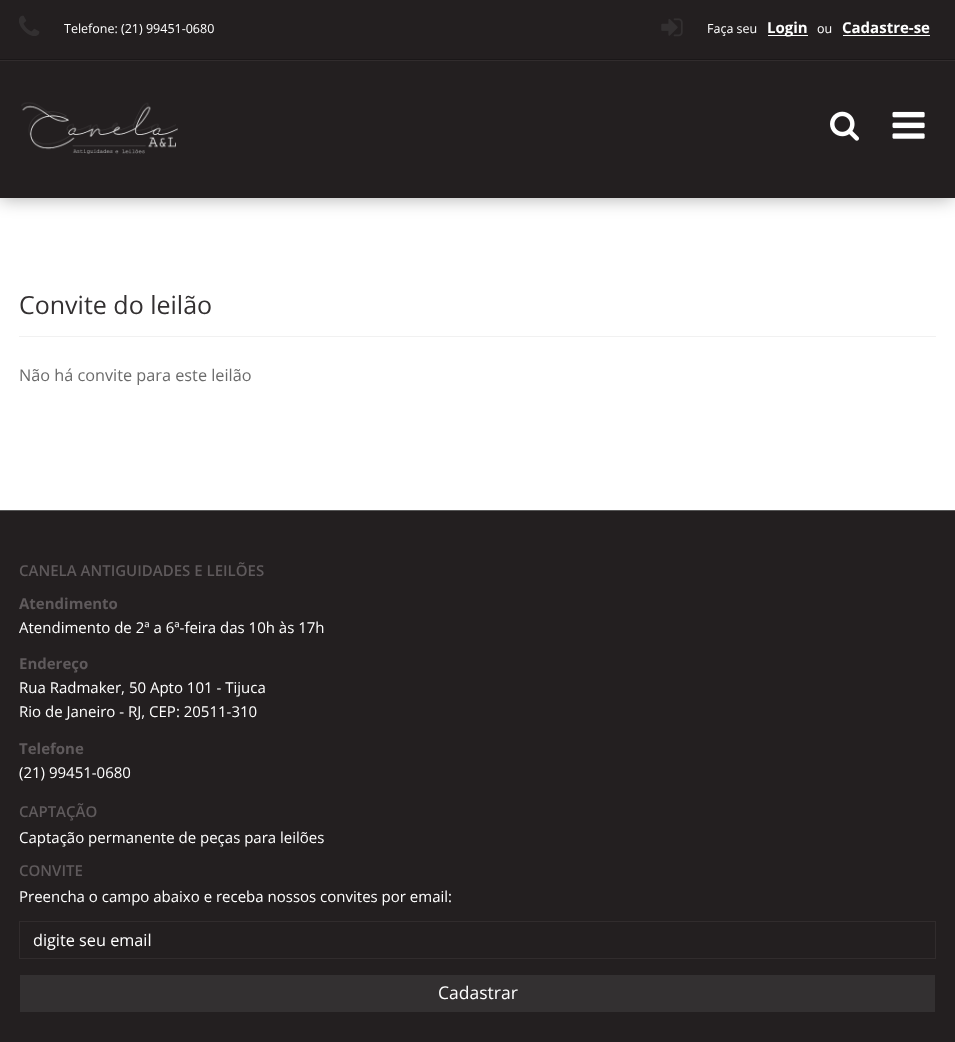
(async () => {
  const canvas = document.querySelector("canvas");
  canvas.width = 955;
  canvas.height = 1042;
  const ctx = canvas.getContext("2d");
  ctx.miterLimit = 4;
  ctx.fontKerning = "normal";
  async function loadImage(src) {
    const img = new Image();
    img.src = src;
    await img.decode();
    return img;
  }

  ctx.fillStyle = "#ffffff";
  ctx.fillRect(0, 0, 955, 1042);
  ctx.fillStyle = "rgba(0, 0, 0, 0.3)";
  ctx.filter = "blur(9px)";
  ctx.beginPath();
  ctx.rect(0, 4, 953, 195);
  ctx.fill();
  ctx.filter = "none";
  ctx.fillStyle = "#231f20";
  ctx.fillRect(0, 0, 955, 198);
  ctx.fillStyle = "#1a1718";
  ctx.fillRect(0, 59, 955, 1);
  ctx.drawImage(await loadImage("img/1.png"), 19, 15, 21, 21);
  ctx.drawImage(await loadImage("img/2.png"), 661, 18, 22, 19);
  for (const [x, y, w, h, color] of [
    [768, 35, 40, 1, "#ffffff"],
    [843, 35, 87, 1, "#ffffff"],
    [0, 60, 955, 1, "#312c2d"],
  ]) {
    ctx.fillStyle = color;
    ctx.fillRect(x, y, w, h);
  }
  ctx.drawImage(await loadImage("img/3.png"), 21, 102, 157, 52);
  ctx.drawImage(await loadImage("img/4.png"), 830, 111, 29, 30);
  ctx.drawImage(await loadImage("img/5.png"), 892, 111, 33, 28);
  for (const [x, y, w, h, color] of [
    [19, 336, 917, 1, "#f1f1f1"],
    [0, 511, 955, 531, "#231f20"],
    [0, 510, 955, 1, "#575757"],
  ]) {
    ctx.fillStyle = color;
    ctx.fillRect(x, y, w, h);
  }
  ctx.strokeStyle = "#312c2d";
  ctx.strokeRect(19.5, 921.5, 916, 37);
  ctx.fillStyle = "#333031";
  ctx.fillRect(20, 975, 915, 37);
  ctx.font = "12.5px Open Sans";
  ctx.fillStyle = "#ffffff";
  ctx.fillText("Telefone: (21) 99451-0680", 64, 33);
  ctx.fillText("Faça seu", 707, 33);
  ctx.font = "bold 15px Open Sans";
  ctx.fillText("Login", 767, 33);
  ctx.font = "12.5px Open Sans";
  ctx.fillText("ou", 817, 33);
  ctx.font = "bold 15px Open Sans";
  ctx.fillText("Cadastre-se", 842, 33);
  ctx.font = "25px Open Sans";
  ctx.fillStyle = "#333031";
  ctx.fillText("Convite do leilão", 19, 314);
  ctx.font = "16.25px Open Sans";
  ctx.fillStyle = "#6b6b6b";
  ctx.fillText("Não há convite para este leilão", 19, 381);
  ctx.font = "600 15px Open Sans";
  ctx.fillStyle = "#5f5a5c";
  ctx.fillText("CANELA ANTIGUIDADES E LEILÕES", 19, 576);
  ctx.font = "bold 15px Open Sans";
  ctx.fillText("Atendimento", 19, 609);
  ctx.font = "15px Open Sans";
  ctx.fillStyle = "#ffffff";
  ctx.fillText("Atendimento de 2ª a 6ª-feira das 10h às 17h", 19, 633);
  ctx.font = "bold 15px Open Sans";
  ctx.fillStyle = "#5f5a5c";
  ctx.fillText("Endereço", 19, 669);
  ctx.font = "15px Open Sans";
  ctx.fillStyle = "#ffffff";
  ctx.fillText("Rua Radmaker, 50 Apto 101 - Tijuca", 19, 693);
  ctx.fillText("Rio de Janeiro - RJ, CEP: 20511-310", 19, 717);
  ctx.font = "bold 15px Open Sans";
  ctx.fillStyle = "#5f5a5c";
  ctx.fillText("Telefone", 19, 754);
  ctx.font = "15px Open Sans";
  ctx.fillStyle = "#ffffff";
  ctx.fillText("(21) 99451-0680", 19, 778);
  ctx.font = "600 15px Open Sans";
  ctx.fillStyle = "#5f5a5c";
  ctx.fillText("CAPTAÇÃO", 19, 817);
  ctx.font = "15px Open Sans";
  ctx.fillStyle = "#ffffff";
  ctx.fillText("Captação permanente de peças para leilões", 19, 843);
  ctx.font = "600 15px Open Sans";
  ctx.fillStyle = "#5f5a5c";
  ctx.fillText("CONVITE", 19, 876);
  ctx.font = "15px Open Sans";
  ctx.fillStyle = "#ffffff";
  ctx.fillText("Preencha o campo abaixo e receba nossos convites por email:", 19, 902);
  ctx.font = "16.25px Open Sans";
  ctx.fillText("digite seu email", 33, 946);
  ctx.font = "17.5px Open Sans";
  ctx.fillText("Cadastrar", 438, 999);
})();
